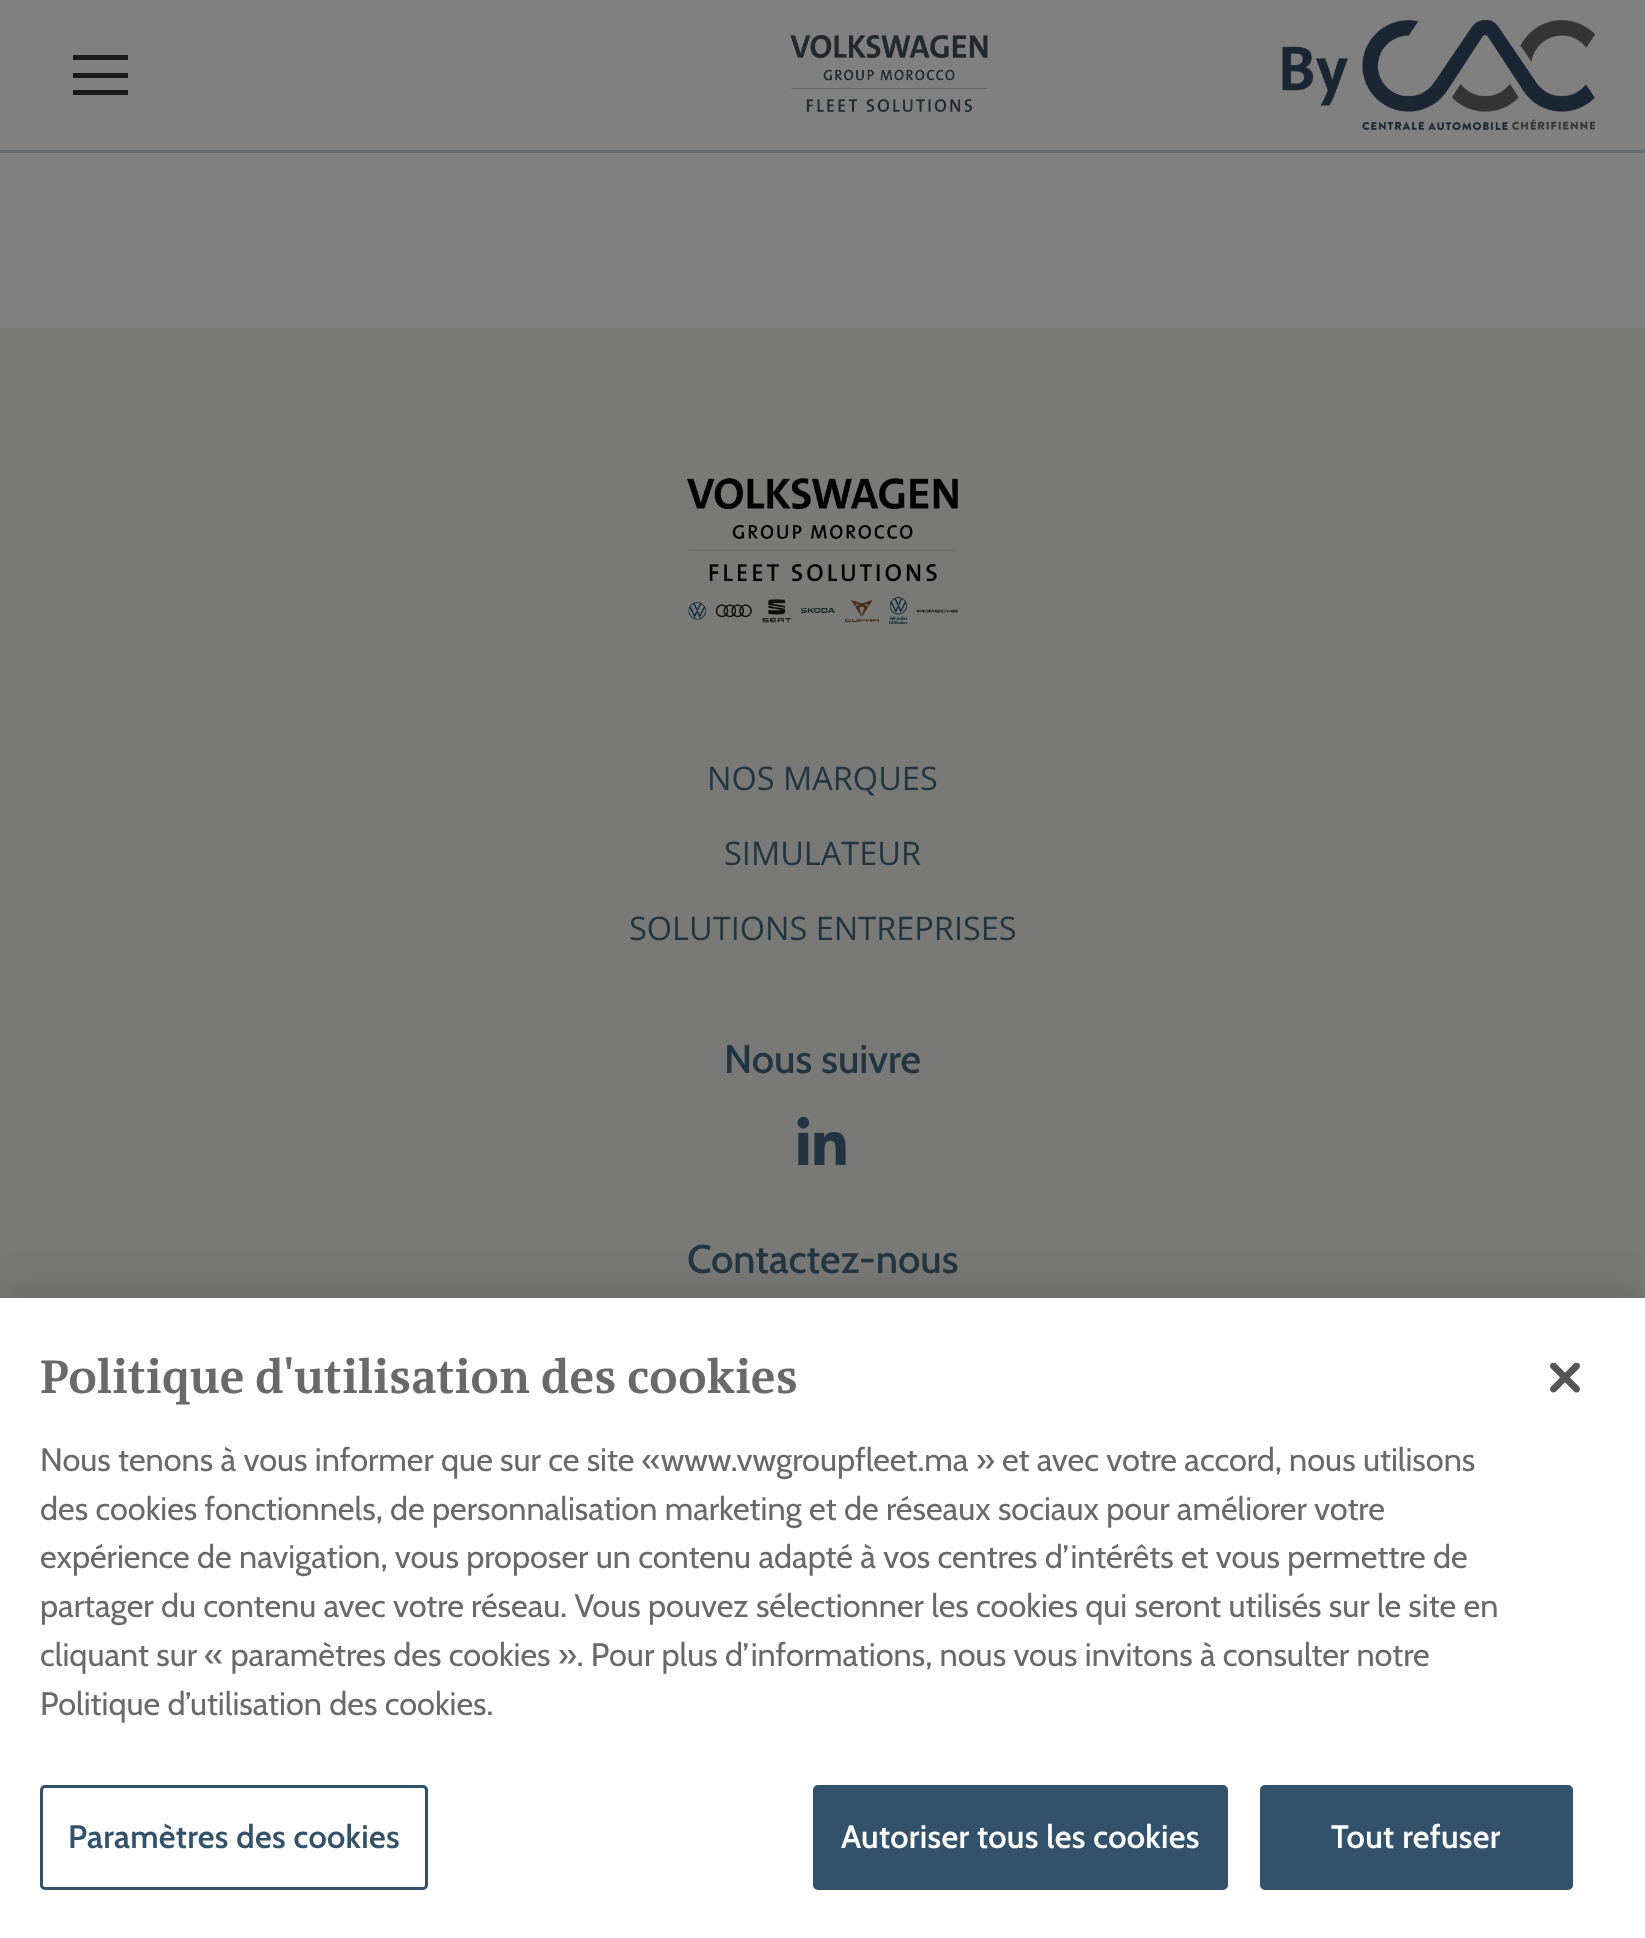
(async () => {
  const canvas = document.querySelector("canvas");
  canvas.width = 1645;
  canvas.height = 1938;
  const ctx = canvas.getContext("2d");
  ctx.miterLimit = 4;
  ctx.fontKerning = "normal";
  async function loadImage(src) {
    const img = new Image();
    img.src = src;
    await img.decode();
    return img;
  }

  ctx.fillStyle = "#808080";
  ctx.fillRect(0, 0, 1645, 1938);
  for (const [x, y, w, h, color] of [
    [0, 150, 1645, 3, "#686d71"],
    [73, 55, 55, 5, "#1a1a1a"],
    [73, 73, 55, 5, "#1a1a1a"],
    [73, 90, 55, 5, "#1a1a1a"],
  ]) {
    ctx.fillStyle = color;
    ctx.fillRect(x, y, w, h);
  }
  ctx.drawImage(await loadImage("img/1.png"), 790, 35, 198, 77);
  ctx.drawImage(await loadImage("img/2.png"), 1282, 20, 313, 110);
  ctx.fillStyle = "#797a77";
  ctx.fillRect(0, 328, 1645, 970);
  ctx.drawImage(await loadImage("img/3.png"), 687, 478, 271, 146);
  ctx.drawImage(await loadImage("img/4.png"), 797, 1116, 49, 49);
  ctx.fillStyle = "rgba(0, 0, 0, 0.2)";
  ctx.filter = "blur(22.5px)";
  ctx.beginPath();
  ctx.rect(0, 1298, 1645, 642);
  ctx.fill();
  ctx.filter = "none";
  ctx.fillStyle = "#ffffff";
  ctx.fillRect(0, 1298, 1645, 640);
  ctx.beginPath();
  ctx.roundRect(41.5, 1786.5, 385, 102, 3.5);
  ctx.strokeStyle = "#32526c";
  ctx.lineWidth = 3;
  ctx.stroke();
  ctx.fillStyle = "#32526c";
  ctx.beginPath();
  ctx.roundRect(814.5, 1786.5, 412, 102, 3.5);
  ctx.fill();
  ctx.stroke();
  ctx.beginPath();
  ctx.roundRect(1261.5, 1786.5, 310, 102, 3.5);
  ctx.fill();
  ctx.stroke();
  ctx.drawImage(await loadImage("img/5.png"), 1550, 1363, 30, 30);
  ctx.font = "32.5px Open Sans";
  ctx.fillStyle = "#223541";
  for (const [text, x, y] of [
    ["NOS MARQUES", 707, 790],
    ["SIMULATEUR", 724, 865],
    ["SOLUTIONS ENTREPRISES", 629, 940],
  ]) {
    ctx.fillText(text, x, y);
  }
  ctx.font = "500 40px Cabin";
  ctx.fillText("Nous suivre", 724, 1073);
  ctx.fillText("Contactez-nous", 687, 1273);
  ctx.font = "bold 48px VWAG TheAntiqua";
  ctx.fillStyle = "#696969";
  ctx.fillText("Politique d'utilisation des cookies", 40, 1393);
  ctx.font = "32.5px Cabin";
  for (const [text, x, y] of [
    ["Nous tenons à vous informer que sur ce site «www.vwgroupfleet.ma » et avec votre accord, nous utilisons", 40, 1471],
    ["des cookies fonctionnels, de personnalisation marketing et de réseaux sociaux pour améliorer votre", 40, 1520],
    ["expérience de navigation, vous proposer un contenu adapté à vos centres d’intérêts et vous permettre de", 40, 1568],
    ["partager du contenu avec votre réseau. Vous pouvez sélectionner les cookies qui seront utilisés sur le site en", 40, 1617],
    ["cliquant sur « paramètres des cookies ». Pour plus d’informations, nous vous invitons à consulter notre", 40, 1666],
    ["Politique d’utilisation des cookies.", 40, 1715],
  ]) {
    ctx.fillText(text, x, y);
  }
  ctx.letterSpacing = "0.3px";
  ctx.font = "600 32.5px Cabin";
  ctx.fillStyle = "#32526c";
  ctx.fillText("Paramètres des cookies", 68, 1848);
  ctx.fillStyle = "#ffffff";
  ctx.fillText("Autoriser tous les cookies", 841, 1848);
  ctx.fillText("Tout refuser", 1331, 1848);
})();
